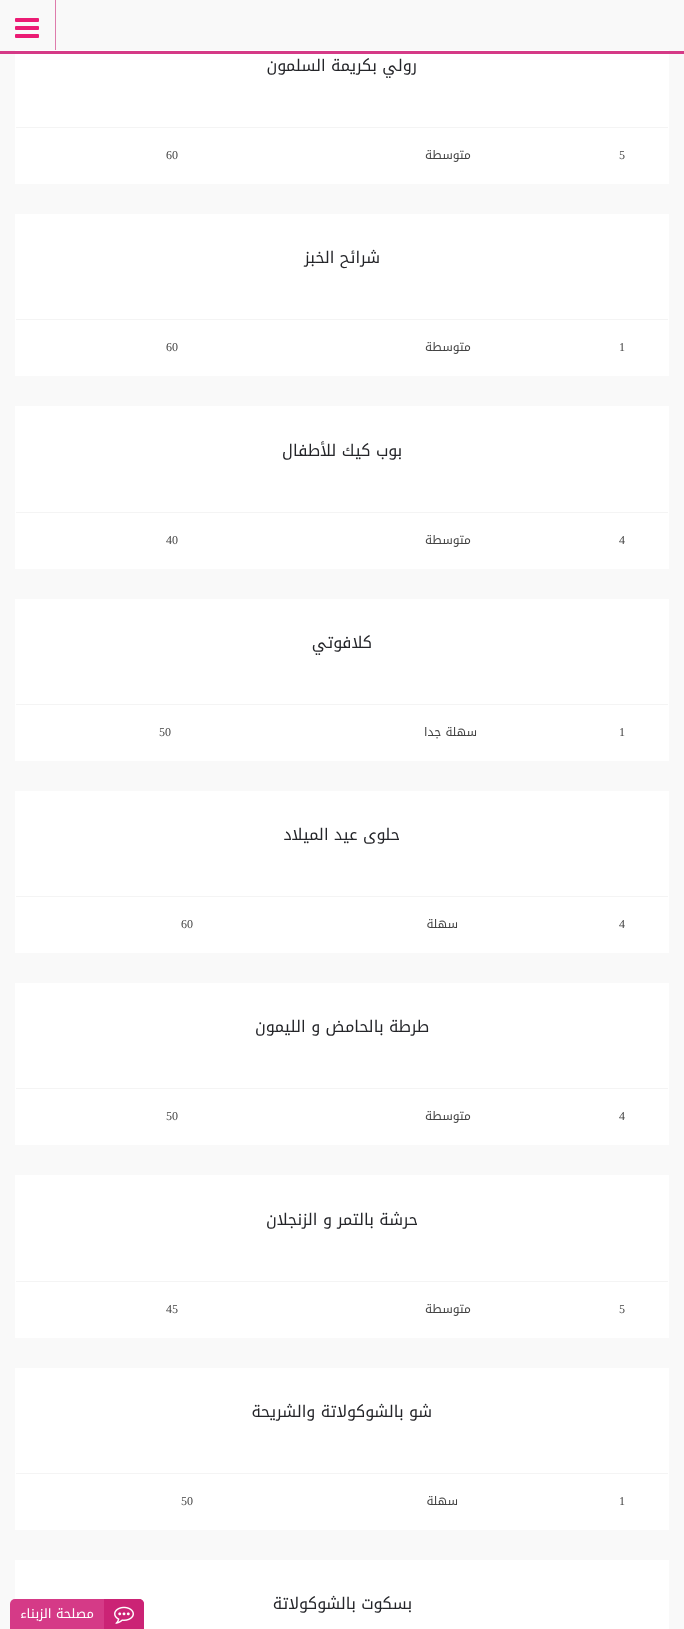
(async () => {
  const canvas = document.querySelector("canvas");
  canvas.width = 684;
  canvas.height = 1629;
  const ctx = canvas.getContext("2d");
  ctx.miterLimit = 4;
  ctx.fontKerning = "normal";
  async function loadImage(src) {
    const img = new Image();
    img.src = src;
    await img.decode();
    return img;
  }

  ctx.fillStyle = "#f9f9f9";
  ctx.fillRect(0, 0, 684, 1629);
  for (const [x, y, w, h, color] of [
    [15, 50, 654, 134, "#ffffff"],
    [0, 51, 684, 3, "#d53a87"],
    [55, 0, 1, 50, "#de7cac"],
  ]) {
    ctx.fillStyle = color;
    ctx.fillRect(x, y, w, h);
  }
  ctx.drawImage(await loadImage("img/1.png"), 15, 18, 24, 20);
  for (const [x, y, w, h, color] of [
    [16, 127, 652, 1, "#f4f4f4"],
    [15, 214, 654, 162, "#ffffff"],
    [16, 319, 652, 1, "#f4f4f4"],
    [15, 406, 654, 163, "#ffffff"],
    [16, 512, 652, 1, "#f4f4f4"],
    [15, 599, 654, 162, "#ffffff"],
    [16, 704, 652, 1, "#f4f4f4"],
    [15, 791, 654, 162, "#ffffff"],
    [16, 896, 652, 1, "#f4f4f4"],
    [15, 983, 654, 162, "#ffffff"],
    [16, 1088, 652, 1, "#f4f4f4"],
    [15, 1175, 654, 163, "#ffffff"],
    [16, 1281, 652, 1, "#f4f4f4"],
    [15, 1368, 654, 162, "#ffffff"],
    [16, 1473, 652, 1, "#f4f4f4"],
    [15, 1560, 654, 69, "#ffffff"],
  ]) {
    ctx.fillStyle = color;
    ctx.fillRect(x, y, w, h);
  }
  ctx.fillStyle = "#d53a87";
  ctx.beginPath();
  ctx.roundRect(10, 1599, 134, 30, [5, 5, 0, 0]);
  ctx.fill();
  ctx.fillStyle = "#cb2375";
  ctx.beginPath();
  ctx.roundRect(104, 1599, 40, 30, [0, 5, 0, 0]);
  ctx.fill();
  ctx.drawImage(await loadImage("img/2.png"), 114, 1606, 20, 18);
  ctx.direction = "rtl";
  ctx.font = "16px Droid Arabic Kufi";
  ctx.fillStyle = "#242529";
  ctx.fillText("رولي بكريمة السلمون", 417, 71);
  ctx.direction = "ltr";
  ctx.font = "12px Liberation Serif";
  ctx.fillStyle = "#434343";
  ctx.fillText("5", 619, 159);
  ctx.direction = "rtl";
  ctx.font = "12px Droid Arabic Kufi";
  ctx.fillText("متوسطة", 471, 159);
  ctx.direction = "ltr";
  ctx.font = "12px Liberation Serif";
  ctx.fillText("60", 166, 159);
  ctx.direction = "rtl";
  ctx.font = "16px Droid Arabic Kufi";
  ctx.fillStyle = "#242529";
  ctx.fillText("شرائح الخبز", 380, 263);
  ctx.direction = "ltr";
  ctx.font = "12px Liberation Serif";
  ctx.fillStyle = "#434343";
  ctx.fillText("1", 619, 351);
  ctx.direction = "rtl";
  ctx.font = "12px Droid Arabic Kufi";
  ctx.fillText("متوسطة", 471, 351);
  ctx.direction = "ltr";
  ctx.font = "12px Liberation Serif";
  ctx.fillText("60", 166, 351);
  ctx.direction = "rtl";
  ctx.font = "16px Droid Arabic Kufi";
  ctx.fillStyle = "#242529";
  ctx.fillText("بوب كيك للأطفال", 402, 456);
  ctx.direction = "ltr";
  ctx.font = "12px Liberation Serif";
  ctx.fillStyle = "#434343";
  ctx.fillText("4", 619, 544);
  ctx.direction = "rtl";
  ctx.font = "12px Droid Arabic Kufi";
  ctx.fillText("متوسطة", 471, 544);
  ctx.direction = "ltr";
  ctx.font = "12px Liberation Serif";
  ctx.fillText("40", 166, 544);
  ctx.direction = "rtl";
  ctx.font = "16px Droid Arabic Kufi";
  ctx.fillStyle = "#242529";
  ctx.fillText("كلافوتي", 372, 648);
  ctx.direction = "ltr";
  ctx.font = "12px Liberation Serif";
  ctx.fillStyle = "#434343";
  ctx.fillText("1", 619, 736);
  ctx.direction = "rtl";
  ctx.font = "12px Droid Arabic Kufi";
  ctx.fillText("سهلة جدا", 477, 736);
  ctx.direction = "ltr";
  ctx.font = "12px Liberation Serif";
  ctx.fillText("50", 159, 736);
  ctx.direction = "rtl";
  ctx.font = "16px Droid Arabic Kufi";
  ctx.fillStyle = "#242529";
  ctx.fillText("حلوى عيد الميلاد", 400, 840);
  ctx.direction = "ltr";
  ctx.font = "12px Liberation Serif";
  ctx.fillStyle = "#434343";
  ctx.fillText("4", 619, 928);
  ctx.direction = "rtl";
  ctx.font = "12px Droid Arabic Kufi";
  ctx.fillText("سهلة", 458, 928);
  ctx.direction = "ltr";
  ctx.font = "12px Liberation Serif";
  ctx.fillText("60", 181, 928);
  ctx.direction = "rtl";
  ctx.font = "16px Droid Arabic Kufi";
  ctx.fillStyle = "#242529";
  ctx.fillText("طرطة بالحامض و الليمون", 429, 1032);
  ctx.direction = "ltr";
  ctx.font = "12px Liberation Serif";
  ctx.fillStyle = "#434343";
  ctx.fillText("4", 619, 1120);
  ctx.direction = "rtl";
  ctx.font = "12px Droid Arabic Kufi";
  ctx.fillText("متوسطة", 471, 1120);
  ctx.direction = "ltr";
  ctx.font = "12px Liberation Serif";
  ctx.fillText("50", 166, 1120);
  ctx.direction = "rtl";
  ctx.font = "16px Droid Arabic Kufi";
  ctx.fillStyle = "#242529";
  ctx.fillText("حرشة بالتمر و الزنجلان", 418, 1225);
  ctx.direction = "ltr";
  ctx.font = "12px Liberation Serif";
  ctx.fillStyle = "#434343";
  ctx.fillText("5", 619, 1313);
  ctx.direction = "rtl";
  ctx.font = "12px Droid Arabic Kufi";
  ctx.fillText("متوسطة", 471, 1313);
  ctx.direction = "ltr";
  ctx.font = "12px Liberation Serif";
  ctx.fillText("45", 166, 1313);
  ctx.direction = "rtl";
  ctx.font = "16px Droid Arabic Kufi";
  ctx.fillStyle = "#242529";
  ctx.fillText("شو بالشوكولاتة والشريحة", 432, 1417);
  ctx.direction = "ltr";
  ctx.font = "12px Liberation Serif";
  ctx.fillStyle = "#434343";
  ctx.fillText("1", 619, 1505);
  ctx.direction = "rtl";
  ctx.font = "12px Droid Arabic Kufi";
  ctx.fillText("سهلة", 458, 1505);
  ctx.direction = "ltr";
  ctx.font = "12px Liberation Serif";
  ctx.fillText("50", 181, 1505);
  ctx.direction = "rtl";
  ctx.font = "16px Droid Arabic Kufi";
  ctx.fillStyle = "#242529";
  ctx.fillText("بسكوت بالشوكولاتة", 412, 1609);
  ctx.font = "13px Droid Arabic Kufi";
  ctx.fillStyle = "#ffffff";
  ctx.fillText("مصلحة الزبناء", 94, 1618);
})();
